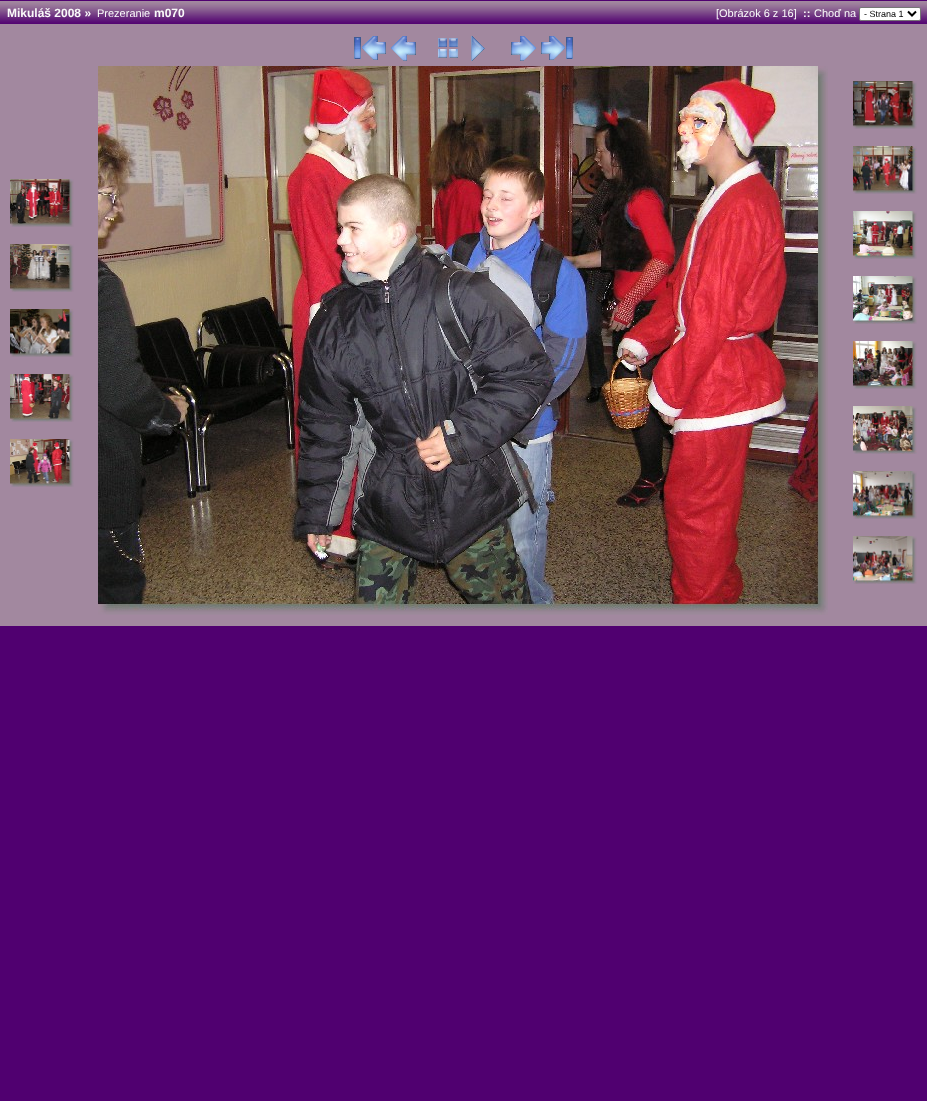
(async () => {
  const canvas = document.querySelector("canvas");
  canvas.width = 927;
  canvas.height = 1101;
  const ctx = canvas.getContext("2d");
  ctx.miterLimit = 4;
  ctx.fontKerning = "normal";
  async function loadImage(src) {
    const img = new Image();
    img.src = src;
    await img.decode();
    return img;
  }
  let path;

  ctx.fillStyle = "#500070";
  ctx.fillRect(0, 0, 927, 1101);
  ctx.drawImage(await loadImage("img/1.png"), 0, 0, 927, 25);
  ctx.fillStyle = "#ffffff";
  ctx.beginPath();
  ctx.roundRect(859.5, 7.5, 61, 13, 1.5);
  ctx.fill();
  ctx.strokeStyle = "#767676";
  ctx.stroke();
  path = new Path2D("M908 11.5L912 15.5L916 11.5");
  ctx.strokeStyle = "#000000";
  ctx.lineWidth = 2;
  ctx.stroke(path);
  ctx.fillStyle = "#a2889f";
  ctx.fillRect(0, 25, 927, 601);
  ctx.drawImage(await loadImage("img/2.png"), 354, 36, 32, 24);
  ctx.drawImage(await loadImage("img/3.png"), 391, 36, 25, 25);
  ctx.drawImage(await loadImage("img/4.png"), 438, 38, 20, 20);
  ctx.drawImage(await loadImage("img/5.png"), 471, 36, 14, 25);
  ctx.drawImage(await loadImage("img/6.png"), 511, 36, 25, 25);
  ctx.drawImage(await loadImage("img/7.png"), 541, 36, 32, 24);
  ctx.drawImage(await loadImage("img/8.png"), 10, 179, 64, 48);
  ctx.drawImage(await loadImage("img/9.png"), 10, 244, 64, 48);
  ctx.drawImage(await loadImage("img/10.png"), 10, 309, 64, 48);
  ctx.drawImage(await loadImage("img/11.png"), 10, 374, 64, 48);
  ctx.drawImage(await loadImage("img/12.png"), 10, 439, 64, 48);
  ctx.drawImage(await loadImage("img/13.png"), 98, 66, 730, 549);
  ctx.drawImage(await loadImage("img/14.png"), 853, 81, 64, 48);
  ctx.drawImage(await loadImage("img/15.png"), 853, 146, 64, 48);
  ctx.drawImage(await loadImage("img/16.png"), 853, 211, 64, 48);
  ctx.drawImage(await loadImage("img/17.png"), 853, 276, 64, 48);
  ctx.drawImage(await loadImage("img/18.png"), 853, 341, 64, 48);
  ctx.drawImage(await loadImage("img/19.png"), 853, 406, 64, 48);
  ctx.drawImage(await loadImage("img/20.png"), 853, 471, 64, 48);
  ctx.drawImage(await loadImage("img/21.png"), 853, 536, 64, 48);
  ctx.font = "bold 12px Liberation Sans";
  ctx.fillStyle = "#fafafa";
  ctx.fillText("Mikuláš 2008 »", 7, 17);
  ctx.font = "11px Liberation Sans";
  ctx.fillText("Prezeranie", 97, 17);
  ctx.font = "bold 12px Liberation Sans";
  ctx.fillText("m070", 154, 17);
  ctx.font = "11px Liberation Sans";
  ctx.fillText("[Obrázok 6 z 16]", 716, 17);
  ctx.font = "bold 11px Liberation Sans";
  ctx.fillText("::", 803, 17);
  ctx.font = "11px Liberation Sans";
  ctx.fillText("Choď na", 814, 17);
  ctx.font = "9px Liberation Sans";
  ctx.fillStyle = "#000000";
  ctx.fillText("- Strana 1", 864, 17);
})();
